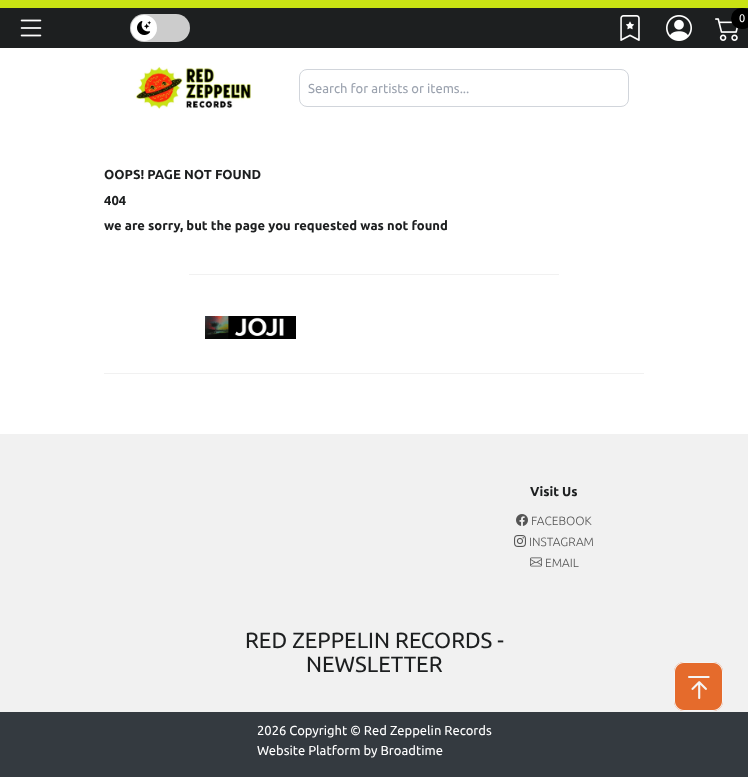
(async () => {
  const canvas = document.querySelector("canvas");
  canvas.width = 748;
  canvas.height = 777;
  const ctx = canvas.getContext("2d");
  ctx.miterLimit = 4;
  ctx.fontKerning = "normal";
  async function loadImage(src) {
    const img = new Image();
    img.src = src;
    await img.decode();
    return img;
  }

  ctx.fillStyle = "#ffffff";
  ctx.fillRect(0, 0, 748, 777);
  ctx.fillStyle = "#c9e213";
  ctx.fillRect(0, 0, 748, 8);
  ctx.fillStyle = "#1d1f20";
  ctx.fillRect(0, 8, 748, 40);
  ctx.drawImage(await loadImage("img/1.png"), 20, 19, 22, 18);
  ctx.fillStyle = "#cccccc";
  ctx.beginPath();
  ctx.roundRect(130, 14, 60, 28, 14);
  ctx.fill();
  ctx.fillStyle = "#ffffff";
  ctx.beginPath();
  ctx.arc(144, 28, 13, 0, Math.PI * 2);
  ctx.fill();
  ctx.drawImage(await loadImage("img/2.png"), 137, 21, 14, 14);
  ctx.drawImage(await loadImage("img/3.png"), 620, 15, 20, 26);
  ctx.drawImage(await loadImage("img/4.png"), 666, 15, 26, 26);
  ctx.drawImage(await loadImage("img/5.png"), 715, 18, 23, 23);
  ctx.fillStyle = "#000000";
  ctx.beginPath();
  ctx.roundRect(731, 8, 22, 21, 10.5);
  ctx.fill();
  ctx.drawImage(await loadImage("img/6.png"), 135, 66, 116, 43);
  ctx.beginPath();
  ctx.roundRect(299.5, 69.5, 329, 37, 7.5);
  ctx.strokeStyle = "#d1d5db";
  ctx.stroke();
  ctx.fillStyle = "#f1f1f1";
  ctx.fillRect(189, 274, 370, 1);
  ctx.drawImage(await loadImage("img/7.png"), 205, 316, 91, 23);
  ctx.fillRect(104, 373, 540, 1);
  ctx.fillRect(0, 434, 748, 278);
  ctx.drawImage(await loadImage("img/8.png"), 516, 514, 12, 12);
  ctx.drawImage(await loadImage("img/9.png"), 514, 535, 12, 12);
  ctx.drawImage(await loadImage("img/10.png"), 530, 557, 12, 10);
  ctx.fillStyle = "#343a40";
  ctx.fillRect(0, 712, 748, 65);
  ctx.drawImage(await loadImage("img/11.png"), 674, 662, 49, 49);
  ctx.font = "11px Ubuntu";
  ctx.fillStyle = "#ffffff";
  ctx.fillText("0", 739, 22);
  ctx.font = "13px Ubuntu";
  ctx.fillStyle = "#9ca3af";
  ctx.fillText("Search for artists or items...", 308, 93);
  ctx.font = "bold 13px Ubuntu";
  ctx.fillStyle = "#1d1f20";
  for (const [text, x, y] of [
    ["OOPS! PAGE NOT FOUND", 104, 179],
    ["404", 104, 205],
    ["we are sorry, but the page you requested was not found", 104, 230],
    ["Visit Us", 530, 496],
  ]) {
    ctx.fillText(text, x, y);
  }
  ctx.font = "300 12px Ubuntu";
  ctx.fillStyle = "#555555";
  for (const [text, x, y] of [
    ["FACEBOOK", 531, 525],
    ["INSTAGRAM", 529, 546],
    ["EMAIL", 545, 567],
  ]) {
    ctx.fillText(text, x, y);
  }
  ctx.font = "22px Ubuntu";
  ctx.fillStyle = "#1d1f20";
  ctx.fillText("RED ZEPPELIN RECORDS -", 245, 648);
  ctx.fillText("NEWSLETTER", 306, 672);
  ctx.font = "13px Ubuntu";
  ctx.fillStyle = "#ffffff";
  ctx.fillText("2026 Copyright © Red Zeppelin Records", 257, 735);
  ctx.fillText("Website Platform by Broadtime", 257, 755);
})();
